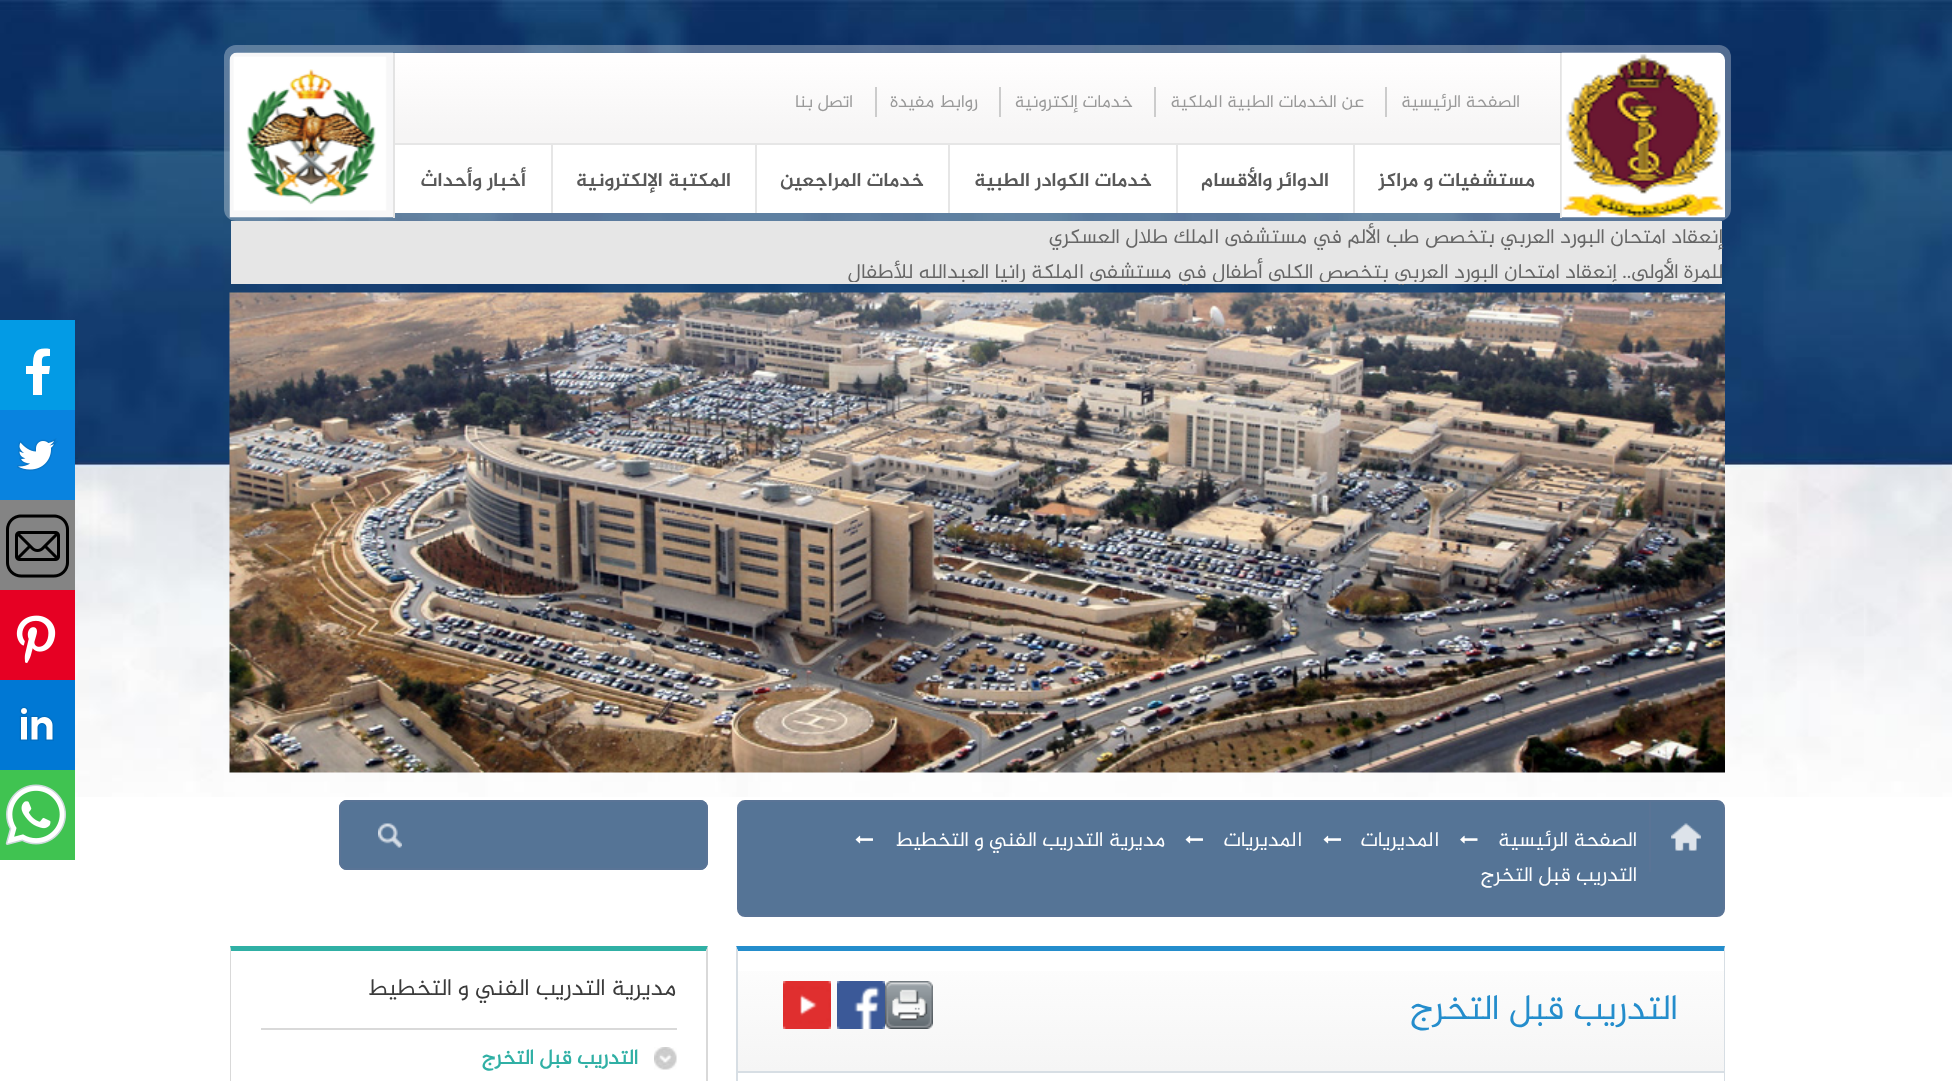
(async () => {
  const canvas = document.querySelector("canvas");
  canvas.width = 1952;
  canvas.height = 1081;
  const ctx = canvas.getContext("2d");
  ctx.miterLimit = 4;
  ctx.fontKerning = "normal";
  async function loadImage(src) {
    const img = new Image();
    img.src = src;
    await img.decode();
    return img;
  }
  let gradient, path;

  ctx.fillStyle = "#ffffff";
  ctx.fillRect(0, 0, 1952, 1081);
  ctx.drawImage(await loadImage("img/1.png"), 0, 0, 1952, 797);
  ctx.fillStyle = "rgba(255, 255, 255, 0.3)";
  ctx.beginPath();
  ctx.roundRect(224, 45, 1507, 176, 12);
  ctx.fill();
  ctx.fillStyle = "#e3e3e3";
  ctx.fillRect(1560, 53, 2, 165);
  ctx.drawImage(await loadImage("img/2.png"), 1561, 52, 164, 166);
  gradient = ctx.createLinearGradient(977, 52, 977, 143);
  gradient.addColorStop(0.1, "#fffefe");
  gradient.addColorStop(0.9, "#f6f5f5");
  ctx.fillStyle = gradient;
  ctx.fillRect(395, 53, 1165, 90);
  for (const [x, y, w, h, color] of [
    [1385, 87, 2, 30, "#cccccc"],
    [1154, 87, 2, 30, "#cccccc"],
    [999, 87, 2, 30, "#cccccc"],
    [875, 87, 2, 30, "#cccccc"],
    [395, 145, 1165, 68, "#ffffff"],
    [395, 143, 1165, 2, "#e6e6e6"],
    [1353, 144, 2, 69, "#e6e6e6"],
    [1176, 144, 2, 69, "#e6e6e6"],
    [948, 144, 2, 69, "#e6e6e6"],
    [755, 144, 2, 69, "#e6e6e6"],
    [551, 144, 2, 69, "#e6e6e6"],
    [393, 53, 2, 165, "#e3e3e3"],
  ]) {
    ctx.fillStyle = color;
    ctx.fillRect(x, y, w, h);
  }
  ctx.drawImage(await loadImage("img/3.png"), 229, 52, 164, 166);
  ctx.fillStyle = "#e6e6e6";
  ctx.fillRect(231, 221, 1491, 61);
  ctx.drawImage(await loadImage("img/4.png"), 229, 292, 1496, 481);
  ctx.fillStyle = "#557496";
  ctx.beginPath();
  ctx.roundRect(738, 801, 986, 115, 7);
  ctx.fill();
  ctx.strokeStyle = "#5a7496";
  ctx.lineWidth = 2;
  ctx.stroke();
  ctx.drawImage(await loadImage("img/5.png"), 1671, 823, 30, 28);
  ctx.fillStyle = "#5a7496";
  ctx.fillRect(1649, 801, 2, 71);
  ctx.drawImage(await loadImage("img/6.png"), 1460, 835, 18, 9);
  ctx.drawImage(await loadImage("img/7.png"), 1323, 835, 18, 9);
  ctx.drawImage(await loadImage("img/7.png"), 1185, 835, 18, 9);
  ctx.drawImage(await loadImage("img/7.png"), 855, 835, 18, 9);
  ctx.fillStyle = "#557496";
  ctx.beginPath();
  ctx.roundRect(339, 800, 369, 70, 8);
  ctx.fill();
  ctx.drawImage(await loadImage("img/8.png"), 378, 823, 24, 25);
  ctx.beginPath();
  ctx.roundRect(340, 801, 367, 68, 7);
  ctx.stroke();
  ctx.fillStyle = "#039be5";
  ctx.fillRect(0, 320, 75, 90);
  ctx.fillStyle = "#ffffff";
  path = new Path2D("M42 374H49L50 366H42C42 357 41 356 50 356V349C36 347 33 352 33 366H26V374H33V395H42Z");
  ctx.fill(path);
  ctx.fillStyle = "#0983df";
  ctx.fillRect(0, 410, 75, 90);
  ctx.drawImage(await loadImage("img/9.png"), 17, 438, 41, 33);
  ctx.fillStyle = "#848484";
  ctx.fillRect(0, 500, 75, 90);
  ctx.drawImage(await loadImage("img/10.png"), 6, 514, 63, 64);
  ctx.fillStyle = "#e60023";
  ctx.fillRect(0, 590, 75, 90);
  ctx.drawImage(await loadImage("img/11.png"), 16, 615, 40, 49);
  ctx.fillStyle = "#0078d4";
  ctx.fillRect(0, 680, 75, 90);
  ctx.drawImage(await loadImage("img/12.png"), 19, 706, 35, 35);
  ctx.fillStyle = "#40c351";
  ctx.fillRect(0, 770, 75, 90);
  ctx.drawImage(await loadImage("img/13.png"), 5, 784, 61, 61);
  ctx.fillStyle = "#248dcc";
  path = new Path2D("M736 946H1725L1724 951H738Z");
  ctx.fill(path);
  ctx.fillStyle = "#d7dee4";
  path = new Path2D("M1725 946V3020L1724 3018V951Z");
  ctx.fill(path);
  path = new Path2D("M736 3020V946L738 951V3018Z");
  ctx.fill(path);
  gradient = ctx.createLinearGradient(1231, 951, 1231, 1071);
  gradient.addColorStop(0, "#fefefe");
  gradient.addColorStop(1, "#f5f5f5");
  ctx.fillStyle = gradient;
  ctx.fillRect(738, 971, 986, 100);
  ctx.fillStyle = "#d7dee4";
  ctx.fillRect(738, 1071, 986, 2);
  ctx.drawImage(await loadImage("img/14.png"), 885, 981, 48, 48);
  ctx.drawImage(await loadImage("img/15.png"), 837, 981, 48, 48);
  ctx.drawImage(await loadImage("img/16.png"), 783, 981, 48, 48);
  ctx.fillStyle = "#30b0a5";
  path = new Path2D("M230 946H708L706 951H231Z");
  ctx.fill(path);
  ctx.fillStyle = "#d9d9d9";
  path = new Path2D("M708 946V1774L706 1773V951Z");
  ctx.fill(path);
  path = new Path2D("M230 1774V946L231 951V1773Z");
  ctx.fill(path);
  ctx.fillRect(261, 1028, 416, 2);
  ctx.drawImage(await loadImage("img/17.png"), 654, 1047, 23, 23);
  ctx.direction = "rtl";
  ctx.font = "18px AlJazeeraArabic";
  ctx.fillStyle = "#999999";
  for (const [text, x, y] of [
    ["الصفحة الرئيسية", 1520, 107],
    ["عن الخدمات الطبية الملكية", 1364, 107],
    ["خدمات إلكترونية", 1133, 107],
    ["روابط مفيدة", 978, 107],
    ["اتصل بنا", 853, 107],
  ]) {
    ctx.fillText(text, x, y);
  }
  ctx.font = "bold 19.5px AlJazeeraArabic";
  ctx.fillStyle = "#595959";
  for (const [text, x, y] of [
    ["مستشفيات و مراكز", 1535, 186],
    ["الدوائر والأقسام", 1329, 186],
    ["خدمات الكوادر الطبية", 1152, 186],
    ["خدمات المراجعين", 924, 186],
    ["المكتبة الإلكترونية", 731, 186],
    ["أخبار وأحداث", 526, 186],
  ]) {
    ctx.fillText(text, x, y);
  }
  ctx.font = "21px AlJazeeraArabic";
  ctx.fillStyle = "#666666";
  ctx.fillText("إنعقاد امتحان البورد العربي بتخصص طب الألم في مستشفى الملك طلال العسكري", 1723, 243);
  ctx.fillText("للمرة الأولى.. إنعقاد امتحان البورد العربي بتخصص الكلى أطفال في مستشفى الملكة رانيا العبدالله للأطفال", 1723, 278);
  ctx.fillStyle = "#e6e6e6";
  ctx.fillRect(231, 282, 1491, 2);
  ctx.fillStyle = "#ffffff";
  for (const [text, x, y] of [
    ["الصفحة الرئيسية", 1637, 846],
    ["المديريات", 1439, 846],
    ["المديريات", 1302, 846],
    ["مديرية التدريب الفني و التخطيط", 1165, 846],
    ["التدريب قبل التخرج", 1637, 881],
  ]) {
    ctx.fillText(text, x, y);
  }
  ctx.font = "36px AlJazeeraArabic";
  ctx.fillStyle = "#248dcc";
  ctx.fillText("التدريب قبل التخرج", 1678, 1019);
  ctx.font = "24px AlJazeeraArabic";
  ctx.fillStyle = "#3b3b3b";
  ctx.fillText("مديرية التدريب الفني و التخطيط", 676, 995);
  ctx.font = "bold 21px 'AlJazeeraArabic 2'";
  ctx.fillStyle = "#30b0a5";
  ctx.fillText("التدريب قبل التخرج", 638, 1064);
})();
